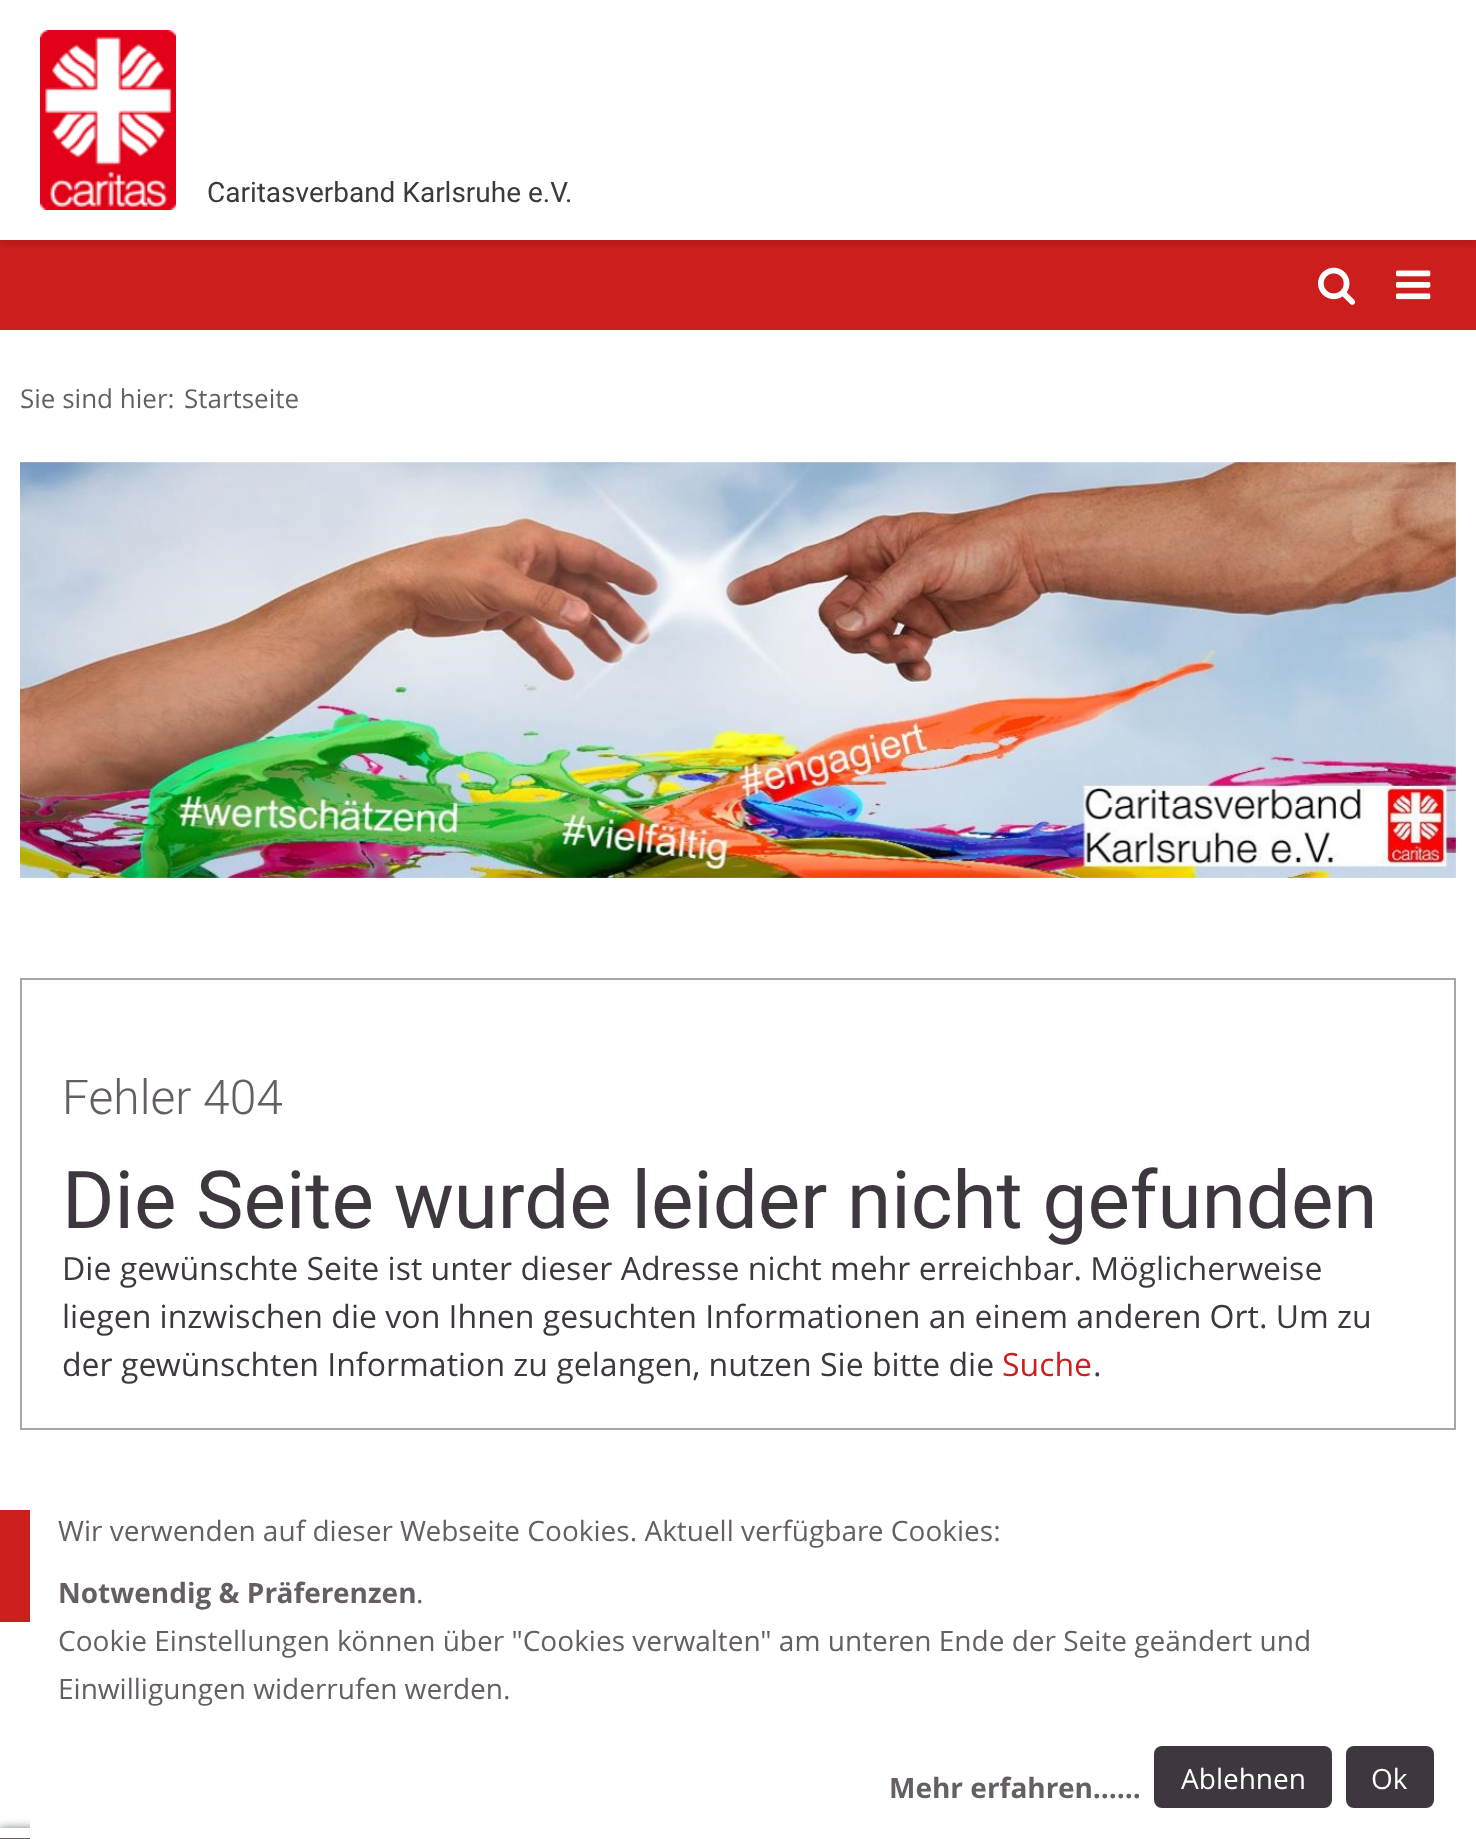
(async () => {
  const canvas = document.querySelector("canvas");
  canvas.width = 1476;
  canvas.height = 1839;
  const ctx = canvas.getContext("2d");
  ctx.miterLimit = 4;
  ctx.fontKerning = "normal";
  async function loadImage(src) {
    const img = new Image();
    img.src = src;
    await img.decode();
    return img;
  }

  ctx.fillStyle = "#ffffff";
  ctx.fillRect(0, 0, 1476, 1839);
  ctx.fillStyle = "#cc1e1c";
  ctx.fillRect(0, 240, 1476, 90);
  ctx.save();
  ctx.beginPath();
  ctx.rect(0, 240, 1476, 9);
  ctx.clip();
  ctx.fillStyle = "rgba(0, 0, 0, 0.1)";
  ctx.filter = "blur(3px)";
  ctx.beginPath();
  ctx.rect(0, 6, 1476, 240);
  ctx.fill();
  ctx.filter = "none";
  ctx.restore();
  ctx.drawImage(await loadImage("img/1.png"), 40, 30, 136, 180);
  ctx.drawImage(await loadImage("img/2.png"), 1318, 267, 38, 38);
  ctx.drawImage(await loadImage("img/3.png"), 1396, 270, 35, 30);
  ctx.drawImage(await loadImage("img/4.png"), 20, 462, 1436, 416);
  ctx.strokeStyle = "#a7a7a7";
  ctx.lineWidth = 2;
  ctx.strokeRect(21, 979, 1434, 450);
  ctx.fillRect(0, 1510, 30, 112);
  ctx.save();
  ctx.beginPath();
  ctx.rect(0, 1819, 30, 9);
  ctx.clip();
  ctx.fillStyle = "rgba(0, 0, 0, 0.5)";
  ctx.filter = "blur(5px)";
  ctx.beginPath();
  ctx.rect(0, 1828, 1476, 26);
  ctx.fill();
  ctx.filter = "none";
  ctx.restore();
  ctx.fillStyle = "#655f65";
  ctx.fillRect(0, 1838, 30, 1);
  ctx.fillStyle = "#ffffff";
  ctx.fillRect(30, 1818, 1446, 10);
  ctx.fillStyle = "#3f373f";
  ctx.beginPath();
  ctx.roundRect(1154, 1746, 178, 62, 8);
  ctx.fill();
  ctx.beginPath();
  ctx.roundRect(1346, 1746, 88, 62, 8);
  ctx.fill();
  ctx.font = "28px Roboto";
  ctx.fillText("Caritasverband Karlsruhe e.V.", 207, 202);
  ctx.font = "26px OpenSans";
  ctx.fillStyle = "#655f65";
  ctx.fillText("Sie sind hier:", 20, 408);
  ctx.fillText("Startseite", 184, 408);
  ctx.font = "300 48px Roboto";
  ctx.fillText("Fehler 404", 62, 1114);
  ctx.font = "80px Roboto";
  ctx.fillStyle = "#3f373f";
  ctx.fillText("Die Seite wurde leider nicht gefunden", 62, 1228);
  ctx.font = "32px OpenSans";
  for (const [text, x, y] of [
    ["Die gewünschte Seite ist unter dieser Adresse nicht mehr erreichbar. Möglicherweise", 62, 1280],
    ["liegen inzwischen die von Ihnen gesuchten Informationen an einem anderen Ort. Um zu", 62, 1328],
    ["der gewünschten Information zu gelangen, nutzen Sie bitte die", 62, 1376],
  ]) {
    ctx.fillText(text, x, y);
  }
  ctx.fillStyle = "#cc1e1c";
  ctx.fillText("Suche", 1002, 1376);
  ctx.fillStyle = "#3f373f";
  ctx.fillText(".", 1093, 1376);
  ctx.font = "28px OpenSans";
  ctx.fillStyle = "#655f65";
  ctx.fillText("Wir verwenden auf dieser Webseite Cookies. Aktuell verfügbare Cookies:", 58, 1541);
  ctx.font = "bold 28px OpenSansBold";
  ctx.fillText("Notwendig & Präferenzen", 58, 1603);
  ctx.font = "28px OpenSans";
  for (const [text, x, y] of [
    [".", 416, 1603],
    ["Cookie Einstellungen können über \"Cookies verwalten\" am unteren Ende der Seite geändert und", 58, 1651],
    ["Einwilligungen widerrufen werden.", 58, 1699],
  ]) {
    ctx.fillText(text, x, y);
  }
  ctx.font = "bold 28px OpenSansBold";
  ctx.fillText("Mehr erfahren......", 889, 1798);
  ctx.font = "28px OpenSans";
  ctx.fillStyle = "#ffffff";
  ctx.fillText("Ablehnen", 1181, 1789);
  ctx.fillText("Ok", 1371, 1789);
})();
